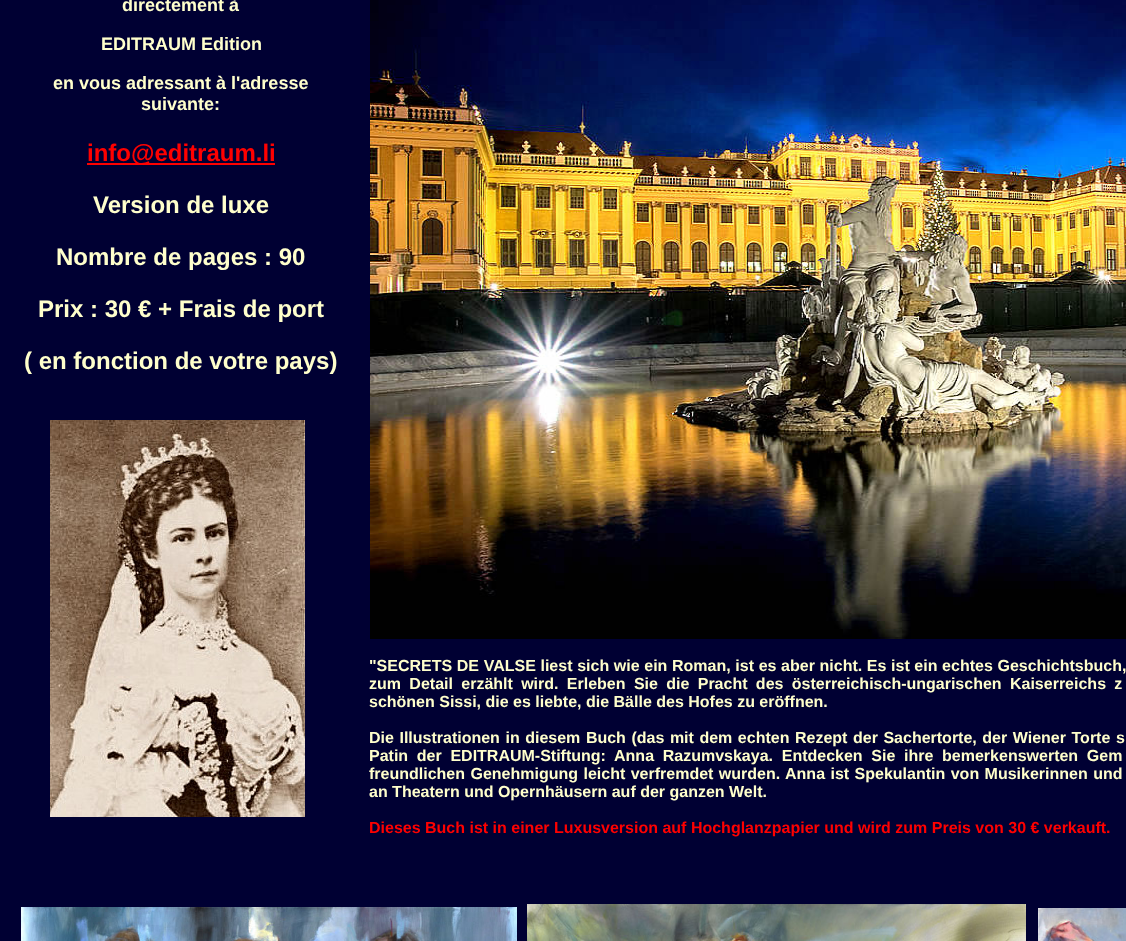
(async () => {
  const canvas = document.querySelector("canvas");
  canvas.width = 1126;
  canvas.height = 941;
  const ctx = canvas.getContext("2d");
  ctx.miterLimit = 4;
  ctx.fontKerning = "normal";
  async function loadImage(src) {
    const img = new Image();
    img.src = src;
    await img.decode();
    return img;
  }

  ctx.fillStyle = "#000033";
  ctx.fillRect(0, 0, 1126, 941);
  ctx.fillStyle = "#ff0000";
  ctx.fillRect(87, 163, 188, 2);
  ctx.drawImage(await loadImage("img/1.png"), 370, 0, 756, 639);
  ctx.drawImage(await loadImage("img/2.png"), 50, 420, 255, 397);
  ctx.drawImage(await loadImage("img/3.png"), 21, 907, 496, 34);
  ctx.drawImage(await loadImage("img/4.png"), 527, 904, 499, 37);
  ctx.drawImage(await loadImage("img/5.png"), 1038, 908, 88, 33);
  ctx.font = "bold 18px Liberation Sans";
  ctx.fillStyle = "#ffffcc";
  for (const [text, x, y] of [
    ["directement à", 122, 11],
    ["EDITRAUM Edition", 101, 50],
    ["en vous adressant à l'adresse", 53, 89],
    ["suivante:", 141, 110],
  ]) {
    ctx.fillText(text, x, y);
  }
  ctx.font = "bold 24px Liberation Sans";
  ctx.fillStyle = "#ff0000";
  ctx.fillText("info@editraum.li", 87, 161);
  ctx.fillStyle = "#ffffcc";
  for (const [text, x, y] of [
    ["Version de luxe", 93, 213],
    ["Nombre de pages : 90", 56, 265],
    ["Prix : 30 € + Frais de port", 38, 317],
    ["( en fonction de votre pays)", 24, 369],
  ]) {
    ctx.fillText(text, x, y);
  }
  ctx.wordSpacing = "0.2px";
  ctx.font = "bold 16px Liberation Sans";
  ctx.fillText("\"SECRETS DE VALSE liest sich wie ein Roman, ist es aber nicht. Es ist ein echtes Geschichtsbuch,", 369, 671);
  ctx.wordSpacing = "3.9px";
  ctx.fillText("zum Detail erzählt wird. Erleben Sie die Pracht des österreichisch-ungarischen Kaiserreichs z", 369, 689);
  ctx.wordSpacing = "0px";
  ctx.fillText("schönen Sissi, die es liebte, die Bälle des Hofes zu eröffnen.", 369, 707);
  ctx.wordSpacing = "1.1px";
  ctx.fillText("Die Illustrationen in diesem Buch (das mit dem echten Rezept der Sachertorte, der Wiener Torte s", 369, 743);
  ctx.wordSpacing = "4.25px";
  ctx.fillText("Patin der EDITRAUM-Stiftung: Anna Razumvskaya. Entdecken Sie ihre bemerkenswerten Gem", 369, 761);
  ctx.wordSpacing = "1px";
  ctx.fillText("freundlichen Genehmigung leicht verfremdet wurden. Anna ist Spekulantin von Musikerinnen und", 369, 779);
  ctx.wordSpacing = "0px";
  ctx.fillText("an Theatern und Opernhäusern auf der ganzen Welt.", 369, 797);
  ctx.fillStyle = "#ff0000";
  ctx.fillText("Dieses Buch ist in einer Luxusversion auf Hochglanzpapier und wird zum Preis von 30 € verkauft.", 369, 833);
})();
